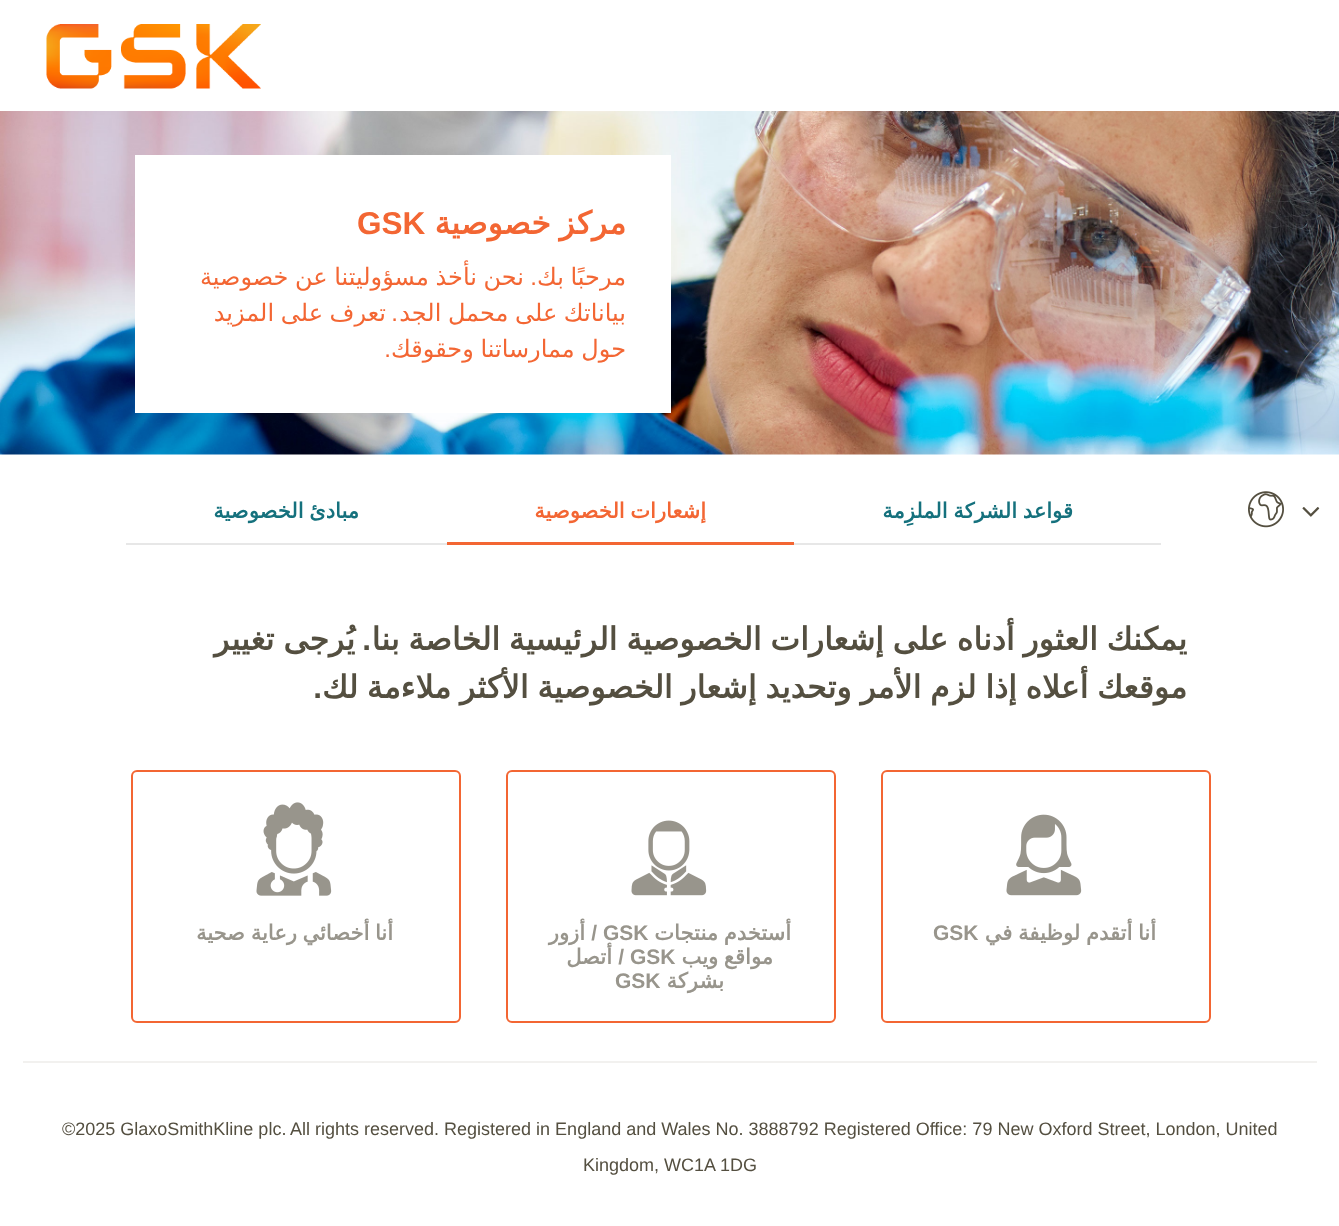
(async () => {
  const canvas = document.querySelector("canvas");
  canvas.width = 1339;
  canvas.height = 1226;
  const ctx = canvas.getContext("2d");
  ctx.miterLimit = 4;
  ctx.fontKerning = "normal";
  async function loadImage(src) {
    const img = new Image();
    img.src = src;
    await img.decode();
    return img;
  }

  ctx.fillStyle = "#ffffff";
  ctx.fillRect(0, 0, 1339, 1226);
  ctx.drawImage(await loadImage("img/1.png"), 46, 24, 215, 65);
  ctx.drawImage(await loadImage("img/2.png"), 0, 111, 1339, 344);
  ctx.fillRect(135, 155, 536, 258);
  ctx.drawImage(await loadImage("img/3.png"), 1302, 507, 18, 10);
  ctx.drawImage(await loadImage("img/4.png"), 1248, 491, 36, 37);
  for (const [x, y, w, h, color] of [
    [794, 543, 367, 2, "#e7e7e7"],
    [447, 542, 347, 3, "#f36633"],
    [126, 543, 321, 2, "#e7e7e7"],
  ]) {
    ctx.fillStyle = color;
    ctx.fillRect(x, y, w, h);
  }
  ctx.beginPath();
  ctx.roundRect(882, 771, 328, 251, 5);
  ctx.strokeStyle = "#f36633";
  ctx.lineWidth = 2;
  ctx.stroke();
  ctx.drawImage(await loadImage("img/5.png"), 1006, 814, 76, 82);
  ctx.beginPath();
  ctx.roundRect(507, 771, 328, 251, 5);
  ctx.stroke();
  ctx.drawImage(await loadImage("img/6.png"), 631, 820, 76, 76);
  ctx.beginPath();
  ctx.roundRect(132, 771, 328, 251, 5);
  ctx.stroke();
  ctx.drawImage(await loadImage("img/7.png"), 256, 802, 76, 94);
  ctx.fillStyle = "#f2f1ef";
  ctx.fillRect(23, 1061, 1294, 2);
  ctx.wordSpacing = "-1.25px";
  ctx.direction = "rtl";
  ctx.font = "bold 31.5px DejaVu Sans";
  ctx.fillStyle = "#f36633";
  ctx.fillText("مركز خصوصية", 626, 234);
  ctx.wordSpacing = "0px";
  ctx.direction = "ltr";
  ctx.font = "bold 31.5px Liberation Sans";
  ctx.fillText("GSK", 357, 234);
  ctx.wordSpacing = "-1px";
  ctx.direction = "rtl";
  ctx.font = "24px DejaVu Sans";
  ctx.fillText("مرحبًا بك", 626, 285);
  ctx.wordSpacing = "0px";
  ctx.font = "24px Liberation Sans";
  ctx.fillText(".", 537, 285);
  ctx.wordSpacing = "-1px";
  ctx.font = "24px DejaVu Sans";
  ctx.fillText("نحن نأخذ مسؤوليتنا عن خصوصية", 524, 285);
  ctx.fillText("بياناتك على محمل الجد", 626, 321);
  ctx.wordSpacing = "0px";
  ctx.font = "24px Liberation Sans";
  ctx.fillText(".", 398, 321);
  ctx.wordSpacing = "-1px";
  ctx.font = "24px DejaVu Sans";
  ctx.fillText("تعرف على المزيد", 386, 321);
  ctx.fillText("حول ممارساتنا وحقوقك", 626, 357);
  ctx.wordSpacing = "0px";
  ctx.font = "24px Liberation Sans";
  ctx.fillText(".", 391, 357);
  ctx.wordSpacing = "-1px";
  ctx.font = "bold 21px DejaVu Sans";
  ctx.fillStyle = "#15717d";
  ctx.fillText("قواعد الشركة الملزِمة", 1073, 518);
  ctx.fillStyle = "#f36633";
  ctx.fillText("إشعارات الخصوصية", 706, 518);
  ctx.fillStyle = "#15717d";
  ctx.fillText("مبادئ الخصوصية", 359, 518);
  ctx.wordSpacing = "-1.25px";
  ctx.font = "bold 31.5px DejaVu Sans";
  ctx.fillStyle = "#544f40";
  ctx.fillText("يمكنك العثور أدناه على إشعارات الخصوصية الرئيسية الخاصة بنا", 1187, 650);
  ctx.wordSpacing = "0px";
  ctx.font = "bold 31.5px Liberation Sans";
  ctx.fillText(".", 371, 650);
  ctx.wordSpacing = "-1.25px";
  ctx.font = "bold 31.5px DejaVu Sans";
  ctx.fillText("يُرجى تغيير", 355, 650);
  ctx.fillText("موقعك أعلاه إذا لزم الأمر وتحديد إشعار الخصوصية الأكثر ملاءمة لك", 1187, 698);
  ctx.wordSpacing = "0px";
  ctx.font = "bold 31.5px Liberation Sans";
  ctx.fillText(".", 322, 698);
  ctx.wordSpacing = "-1px";
  ctx.font = "bold 21px DejaVu Sans";
  ctx.fillStyle = "#98958c";
  ctx.fillText("أنا أتقدم لوظيفة في", 1156, 940);
  ctx.wordSpacing = "0px";
  ctx.direction = "ltr";
  ctx.font = "bold 21px Liberation Sans";
  ctx.fillText("GSK", 933, 940);
  ctx.wordSpacing = "-1px";
  ctx.direction = "rtl";
  ctx.font = "bold 21px DejaVu Sans";
  ctx.fillText("أستخدم منتجات", 791, 940);
  ctx.wordSpacing = "0px";
  ctx.direction = "ltr";
  ctx.font = "bold 21px Liberation Sans";
  ctx.fillText("GSK", 603, 940);
  ctx.direction = "rtl";
  ctx.fillText("/", 597, 940);
  ctx.font = "bold 21px DejaVu Sans";
  ctx.fillText("أزور", 585, 940);
  ctx.wordSpacing = "-1px";
  ctx.fillText("مواقع ويب", 773, 964);
  ctx.wordSpacing = "0px";
  ctx.direction = "ltr";
  ctx.font = "bold 21px Liberation Sans";
  ctx.fillText("GSK", 630, 964);
  ctx.direction = "rtl";
  ctx.fillText("/", 624, 964);
  ctx.font = "bold 21px DejaVu Sans";
  ctx.fillText("أتصل", 612, 964);
  ctx.fillText("بشركة", 724, 988);
  ctx.direction = "ltr";
  ctx.font = "bold 21px Liberation Sans";
  ctx.fillText("GSK", 615, 988);
  ctx.wordSpacing = "-1px";
  ctx.direction = "rtl";
  ctx.font = "bold 21px DejaVu Sans";
  ctx.fillText("أنا أخصائي رعاية صحية", 393, 940);
  ctx.wordSpacing = "0px";
  ctx.direction = "ltr";
  ctx.font = "18px Liberation Sans";
  ctx.fillStyle = "#544f40";
  for (const [text, x, y] of [
    ["All rights reserved. Registered in England and Wales No. 3888792 Registered Office: 79 New Oxford Street, London, United", 290, 1135],
    ["©2025 GlaxoSmithKline plc.", 62, 1135],
    ["Kingdom, WC1A 1DG", 583, 1171],
  ]) {
    ctx.fillText(text, x, y);
  }
})();
